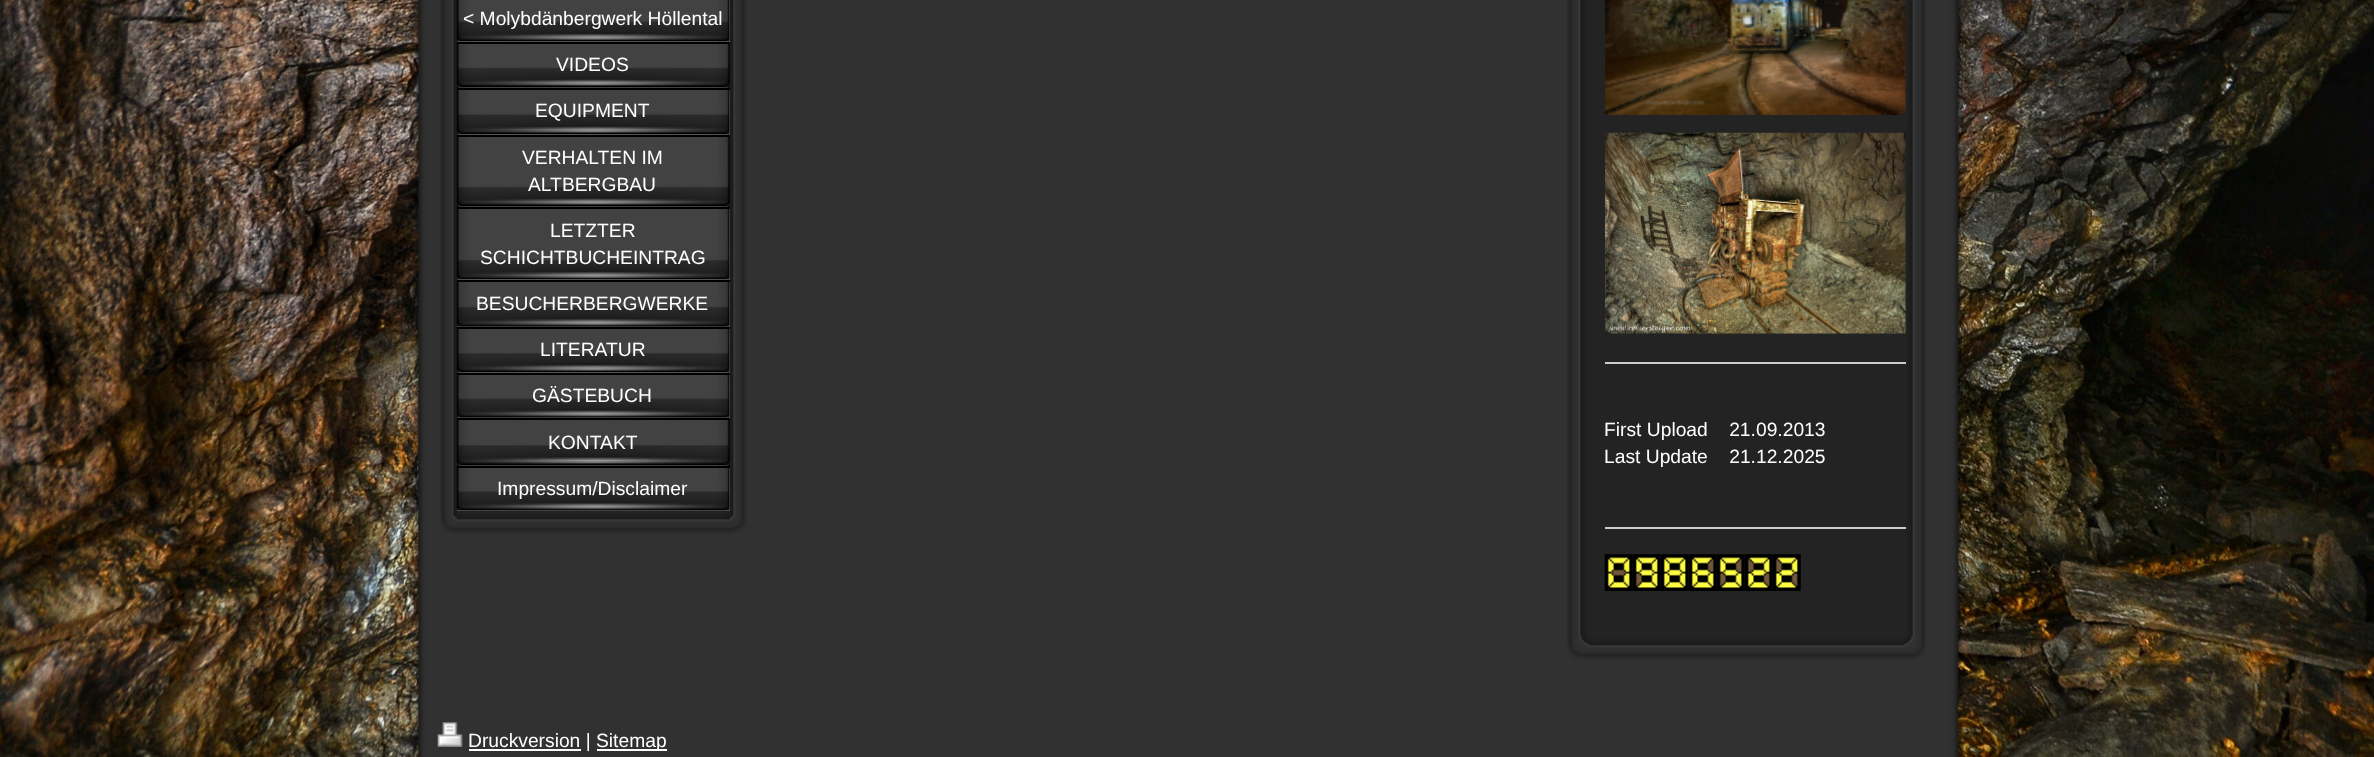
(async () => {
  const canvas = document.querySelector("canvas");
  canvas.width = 2374;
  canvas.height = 757;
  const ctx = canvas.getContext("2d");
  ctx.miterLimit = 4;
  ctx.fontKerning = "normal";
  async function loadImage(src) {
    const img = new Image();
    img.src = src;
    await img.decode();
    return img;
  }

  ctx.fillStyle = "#ffffff";
  ctx.fillRect(0, 0, 2374, 757);
  ctx.drawImage(await loadImage("img/1.png"), 0, 0, 2374, 757);
  ctx.drawImage(await loadImage("img/2.png"), 411, 0, 1554, 757);
  ctx.drawImage(await loadImage("img/3.png"), 440, 0, 307, 511);
  ctx.fillStyle = "#cccccc";
  ctx.fillRect(457, 0, 273, 42);
  ctx.drawImage(await loadImage("img/4.png"), 456, 0, 274, 42);
  ctx.drawImage(await loadImage("img/5.png"), 456, 41, 274, 46);
  ctx.fillStyle = "#000000";
  ctx.fillRect(457, 42, 273, 2);
  ctx.fillStyle = "#cccccc";
  ctx.fillRect(457, 90, 273, 45);
  ctx.drawImage(await loadImage("img/6.png"), 456, 87, 274, 48);
  ctx.fillStyle = "#000000";
  ctx.fillRect(457, 88, 273, 2);
  ctx.drawImage(await loadImage("img/7.png"), 456, 134, 274, 72);
  ctx.fillRect(457, 135, 273, 2);
  ctx.fillStyle = "#cccccc";
  ctx.fillRect(457, 209, 273, 71);
  ctx.drawImage(await loadImage("img/8.png"), 456, 206, 274, 74);
  ctx.fillStyle = "#000000";
  ctx.fillRect(457, 207, 273, 2);
  ctx.fillStyle = "#cccccc";
  ctx.fillRect(457, 282, 273, 45);
  ctx.drawImage(await loadImage("img/9.png"), 456, 279, 274, 48);
  ctx.fillStyle = "#000000";
  ctx.fillRect(457, 280, 273, 2);
  ctx.fillStyle = "#cccccc";
  ctx.fillRect(457, 329, 273, 44);
  ctx.drawImage(await loadImage("img/10.png"), 456, 326, 274, 47);
  ctx.fillStyle = "#000000";
  ctx.fillRect(457, 327, 273, 2);
  ctx.fillStyle = "#cccccc";
  ctx.fillRect(457, 375, 273, 43);
  ctx.drawImage(await loadImage("img/11.png"), 456, 372, 274, 46);
  ctx.fillStyle = "#000000";
  ctx.fillRect(457, 373, 273, 2);
  ctx.drawImage(await loadImage("img/12.png"), 456, 417, 274, 48);
  ctx.fillRect(457, 418, 273, 2);
  ctx.fillStyle = "#cccccc";
  ctx.fillRect(457, 468, 273, 43);
  ctx.drawImage(await loadImage("img/13.png"), 456, 465, 274, 46);
  ctx.fillStyle = "#000000";
  ctx.fillRect(457, 466, 273, 2);
  ctx.drawImage(await loadImage("img/14.png"), 440, 510, 307, 25);
  ctx.drawImage(await loadImage("img/15.png"), 1567, 0, 359, 636);
  ctx.drawImage(await loadImage("img/16.png"), 1605, 0, 301, 115);
  ctx.drawImage(await loadImage("img/17.png"), 1604, 132, 302, 202);
  ctx.fillStyle = "#cccccc";
  ctx.fillRect(1605, 362, 301, 2);
  ctx.fillRect(1605, 527, 301, 2);
  ctx.drawImage(await loadImage("img/18.png"), 1604, 554, 29, 37);
  ctx.drawImage(await loadImage("img/19.png"), 1633, 554, 28, 37);
  ctx.drawImage(await loadImage("img/20.png"), 1661, 554, 28, 37);
  ctx.drawImage(await loadImage("img/21.png"), 1689, 554, 28, 37);
  ctx.drawImage(await loadImage("img/22.png"), 1717, 554, 28, 37);
  ctx.drawImage(await loadImage("img/23.png"), 1745, 554, 28, 37);
  ctx.drawImage(await loadImage("img/23.png"), 1773, 554, 28, 37);
  ctx.drawImage(await loadImage("img/24.png"), 1567, 636, 359, 25);
  ctx.drawImage(await loadImage("img/25.png"), 437, 722, 26, 25);
  ctx.fillStyle = "#ffffff";
  ctx.fillRect(469, 749, 112, 2);
  ctx.fillRect(597, 749, 70, 2);
  ctx.font = "19.25px Liberation Sans";
  for (const [text, x, y] of [
    ["< Molybdänbergwerk Höllental", 463, 25],
    ["VIDEOS", 556, 71],
    ["EQUIPMENT", 535, 117],
    ["VERHALTEN IM", 522, 164],
    ["ALTBERGBAU", 528, 191],
    ["LETZTER", 550, 237],
    ["SCHICHTBUCHEINTRAG", 480, 264],
    ["BESUCHERBERGWERKE", 476, 310],
    ["LITERATUR", 540, 356],
    ["GÄSTEBUCH", 532, 402],
    ["KONTAKT", 548, 449],
    ["Impressum/Disclaimer", 497, 495],
    ["First Upload    21.09.2013", 1604, 436],
    ["Last Update    21.12.2025", 1604, 463],
    ["Druckversion |", 468, 747],
    ["Sitemap", 596, 747],
  ]) {
    ctx.fillText(text, x, y);
  }
})();
